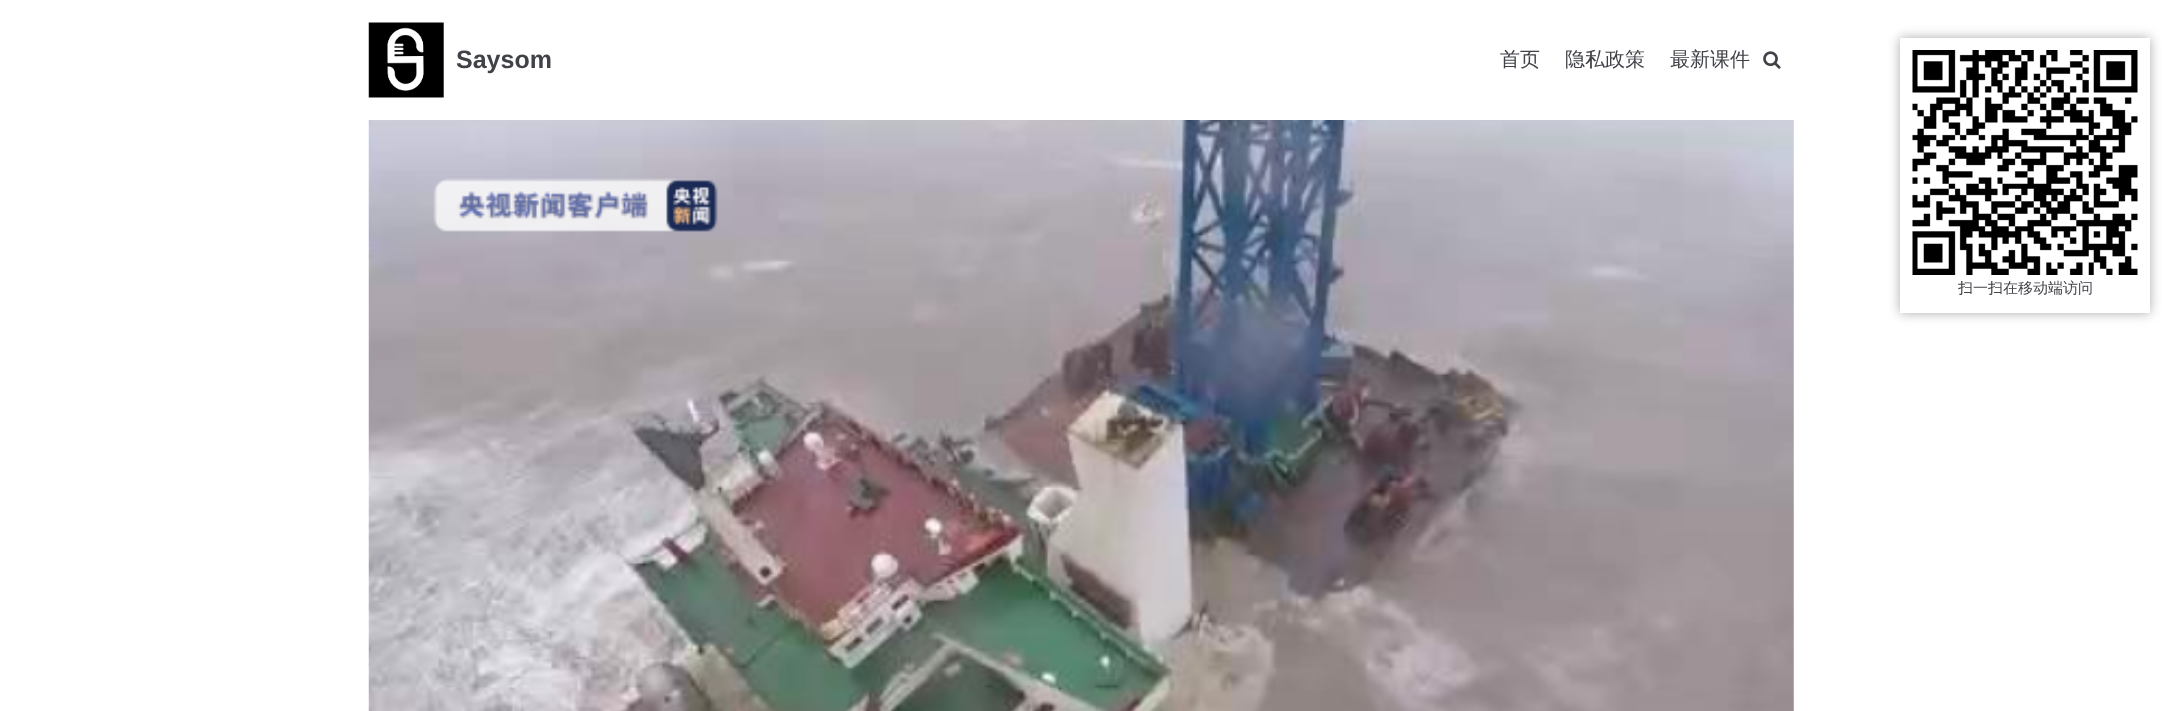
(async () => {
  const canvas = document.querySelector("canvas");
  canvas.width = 2162;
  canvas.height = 711;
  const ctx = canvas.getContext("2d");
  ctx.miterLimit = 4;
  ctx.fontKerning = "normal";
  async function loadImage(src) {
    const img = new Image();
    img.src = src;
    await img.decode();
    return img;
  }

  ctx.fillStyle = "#ffffff";
  ctx.fillRect(0, 0, 2162, 711);
  ctx.drawImage(await loadImage("img/1.png"), 368, 22, 76, 76);
  ctx.drawImage(await loadImage("img/2.png"), 1763, 51, 18, 18);
  ctx.drawImage(await loadImage("img/3.png"), 368, 120, 1426, 591);
  ctx.fillStyle = "#aaaaaa";
  ctx.filter = "blur(6px)";
  ctx.beginPath();
  ctx.rect(1900, 38, 250, 275);
  ctx.fill();
  ctx.filter = "none";
  ctx.fillStyle = "#ffffff";
  ctx.fillRect(1900, 38, 250, 275);
  ctx.drawImage(await loadImage("img/4.png"), 1912, 50, 226, 225);
  ctx.font = "bold 25px Liberation Sans";
  ctx.fillStyle = "#404248";
  ctx.fillText("Saysom", 456, 68);
  ctx.font = "500 20px WenQuanYi Zen Hei";
  for (const [text, x, y] of [
    ["首页", 1500, 66],
    ["隐私政策", 1565, 66],
    ["最新课件", 1670, 66],
  ]) {
    ctx.fillText(text, x, y);
  }
  ctx.font = "500 15px WenQuanYi Zen Hei";
  ctx.fillText("扫一扫在移动端访问", 1958, 293);
})();
